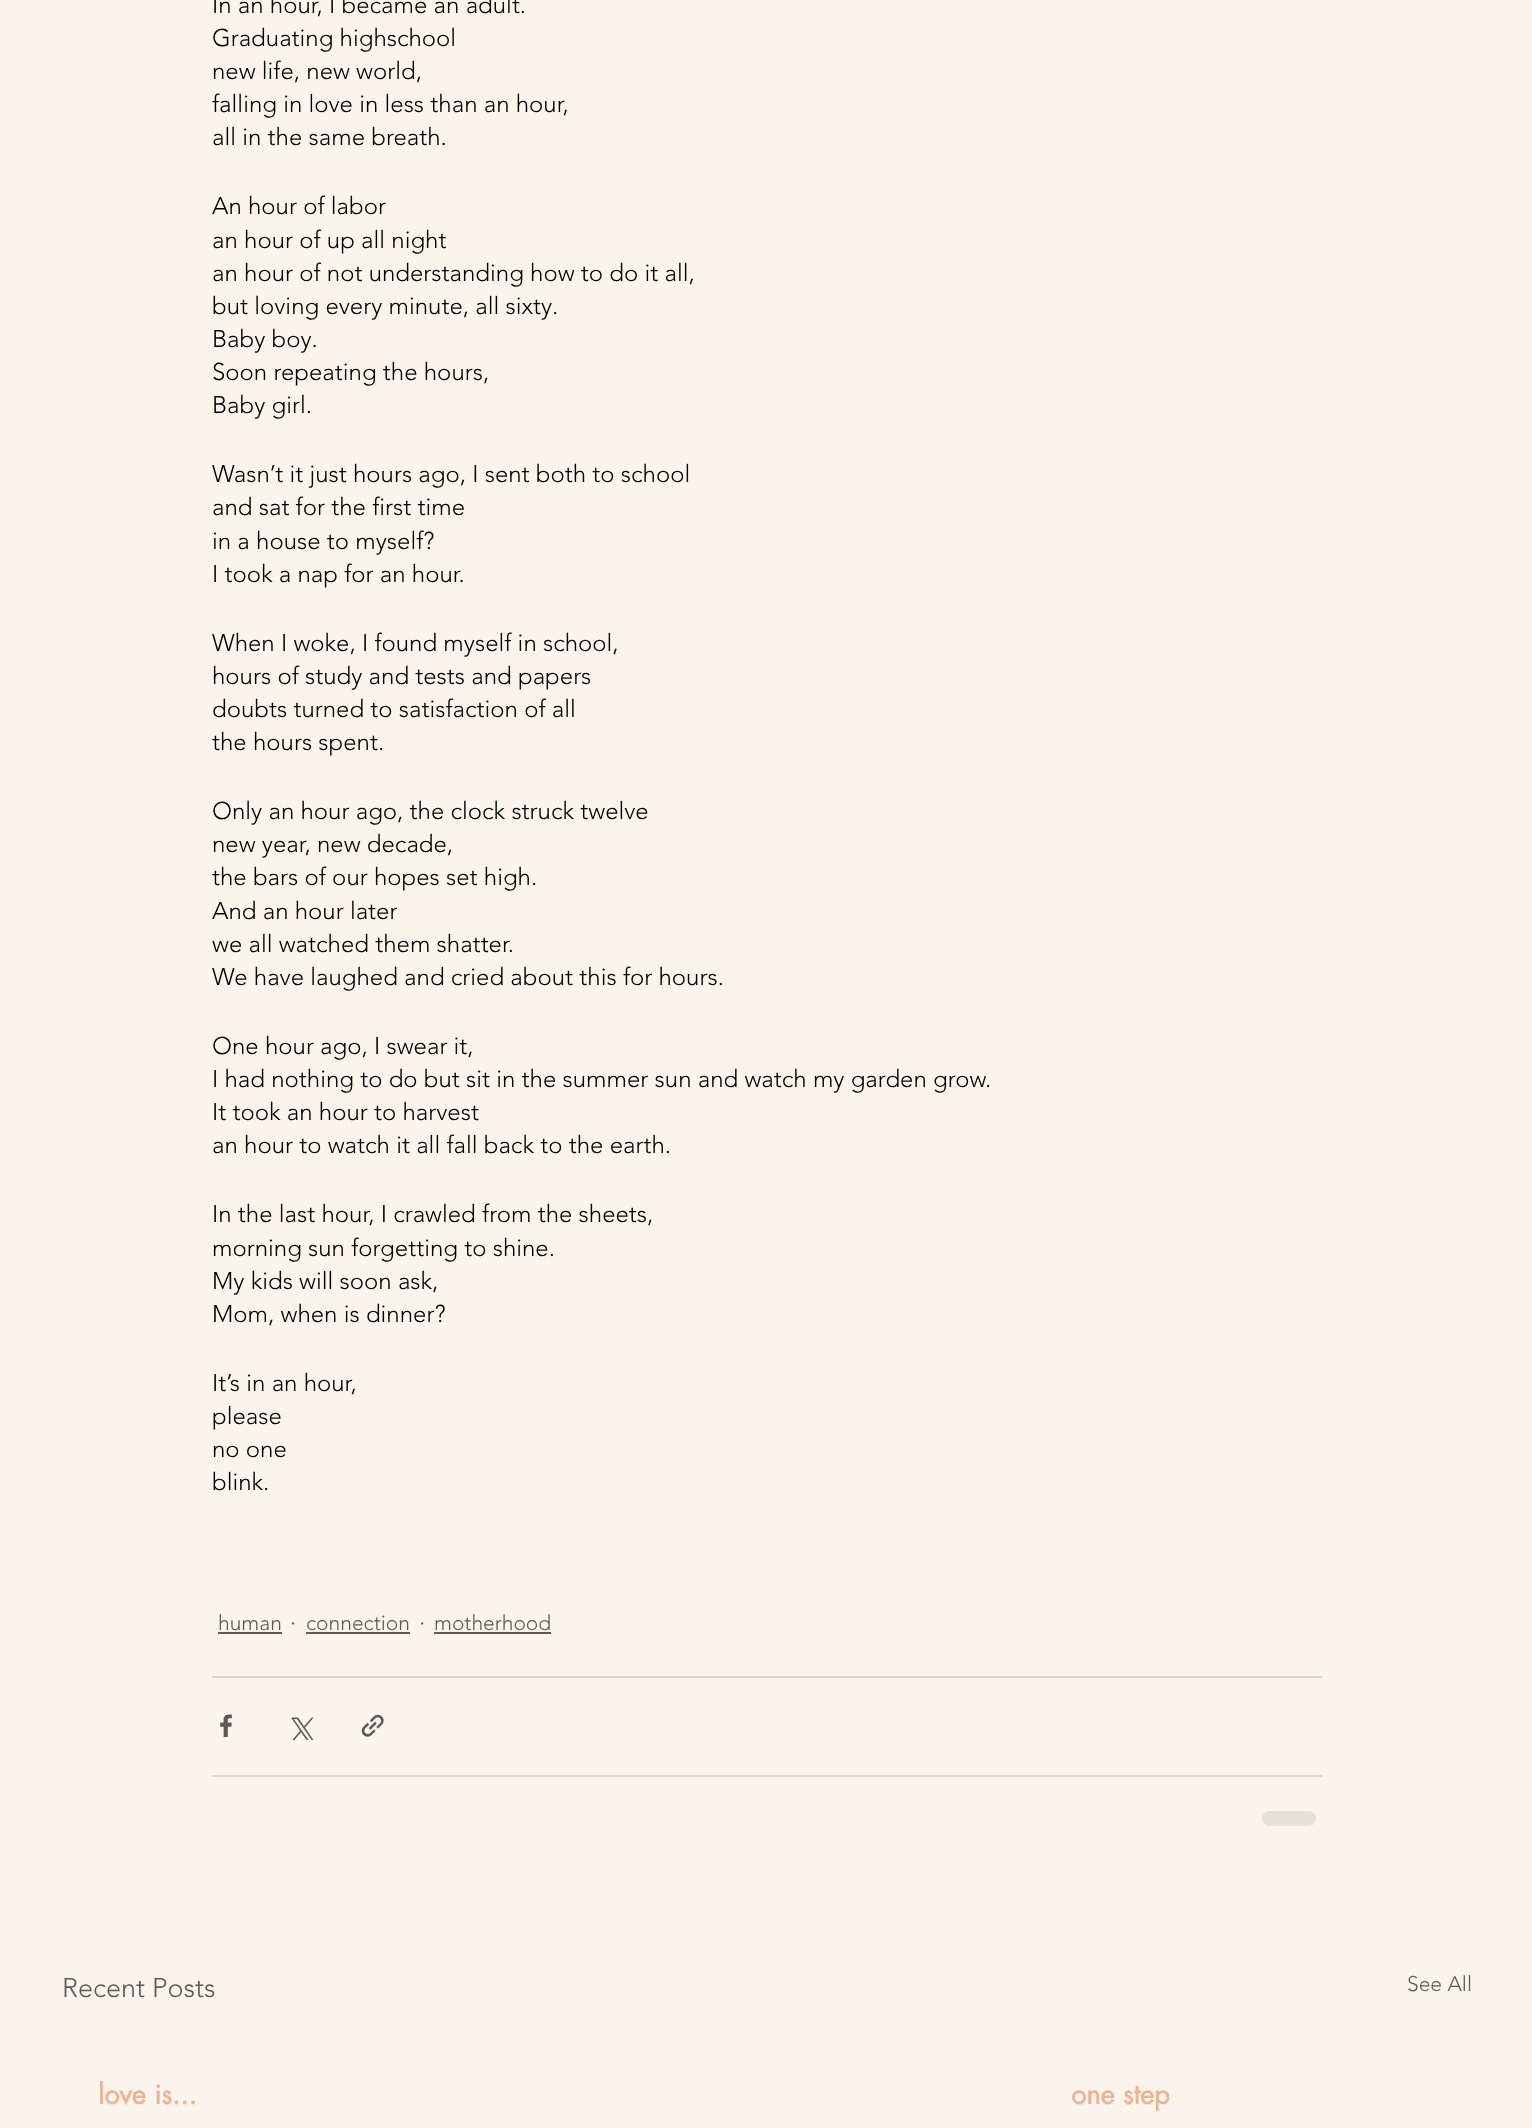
(async () => {
  const canvas = document.querySelector("canvas");
  canvas.width = 1532;
  canvas.height = 2128;
  const ctx = canvas.getContext("2d");
  ctx.miterLimit = 4;
  ctx.fontKerning = "normal";
  async function loadImage(src) {
    const img = new Image();
    img.src = src;
    await img.decode();
    return img;
  }

  ctx.fillStyle = "#faf4ed";
  ctx.fillRect(0, 0, 1532, 2128);
  for (const [x, y, w, h, color] of [
    [218, 1632, 64, 2, "#595959"],
    [306, 1632, 104, 2, "#595959"],
    [434, 1632, 117, 2, "#595959"],
    [212, 1676, 1110, 2, "#dad5cf"],
  ]) {
    ctx.fillStyle = color;
    ctx.fillRect(x, y, w, h);
  }
  ctx.drawImage(await loadImage("img/1.png"), 220, 1714, 12, 23);
  ctx.drawImage(await loadImage("img/2.png"), 291, 1717, 23, 23);
  ctx.drawImage(await loadImage("img/3.png"), 361, 1714, 23, 23);
  ctx.fillRect(212, 1775, 1110, 2);
  ctx.fillStyle = "#e7e1db";
  ctx.beginPath();
  ctx.roundRect(1262, 1811, 54, 15, 7.5);
  ctx.fill();
  ctx.font = "300 24px 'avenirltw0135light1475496'";
  ctx.fillStyle = "#000000";
  for (const [text, x, y] of [
    ["In an hour, I became an adult.", 212, 13],
    ["Graduating highschool", 212, 46],
    ["new life, new world,", 212, 79],
    ["falling in love in less than an hour,", 212, 112],
    ["all in the same breath.", 212, 145],
    ["An hour of labor", 212, 214],
    ["an hour of up all night", 212, 248],
    ["an hour of not understanding how to do it all,", 212, 281],
    ["but loving every minute, all sixty.", 212, 314],
    ["Baby boy.", 212, 347],
    ["Soon repeating the hours,", 212, 380],
    ["Baby girl.", 212, 413],
    ["Wasn’t it just hours ago, I sent both to school", 212, 482],
    ["and sat for the first time", 212, 515],
    ["in a house to myself?", 212, 549],
    ["I took a nap for an hour.", 212, 582],
    ["When I woke, I found myself in school,", 212, 651],
    ["hours of study and tests and papers", 212, 684],
    ["doubts turned to satisfaction of all", 212, 717],
    ["the hours spent.", 212, 750],
    ["Only an hour ago, the clock struck twelve", 212, 819],
    ["new year, new decade,", 212, 852],
    ["the bars of our hopes set high.", 212, 885],
    ["And an hour later", 212, 919],
    ["we all watched them shatter.", 212, 952],
    ["We have laughed and cried about this for hours.", 212, 985],
    ["One hour ago, I swear it,", 212, 1054],
    ["I had nothing to do but sit in the summer sun and watch my garden grow.", 212, 1087],
    ["It took an hour to harvest", 212, 1120],
    ["an hour to watch it all fall back to the earth.", 212, 1153],
    ["In the last hour, I crawled from the sheets,", 212, 1222],
    ["morning sun forgetting to shine.", 212, 1256],
    ["My kids will soon ask,", 212, 1289],
    ["Mom, when is dinner?", 212, 1322],
    ["It’s in an hour,", 212, 1391],
    ["please", 212, 1424],
    ["no one", 212, 1457],
    ["blink.", 212, 1490],
  ]) {
    ctx.fillText(text, x, y);
  }
  ctx.font = "300 21px 'avenirltw0135light1475496'";
  ctx.fillStyle = "#595959";
  ctx.fillText("human", 218, 1630);
  ctx.font = "300 24px 'avenirltw0135light1475496'";
  ctx.fillText("·", 290, 1631);
  ctx.font = "300 21px 'avenirltw0135light1475496'";
  ctx.fillText("connection", 306, 1630);
  ctx.font = "300 24px 'avenirltw0135light1475496'";
  ctx.fillText("·", 419, 1631);
  ctx.font = "300 21px 'avenirltw0135light1475496'";
  ctx.fillText("motherhood", 434, 1630);
  ctx.font = "300 27px 'avenirltw0135light1475496'";
  ctx.fillText("Recent Posts", 62, 1997);
  ctx.font = "300 21px 'avenirltw0135light1475496'";
  ctx.fillText("See All", 1407, 1991);
  ctx.font = "bold 27px futura";
  ctx.fillStyle = "#edb596";
  ctx.fillText("love is...", 98, 2104);
  ctx.fillText("one step", 1071, 2104);
})();
